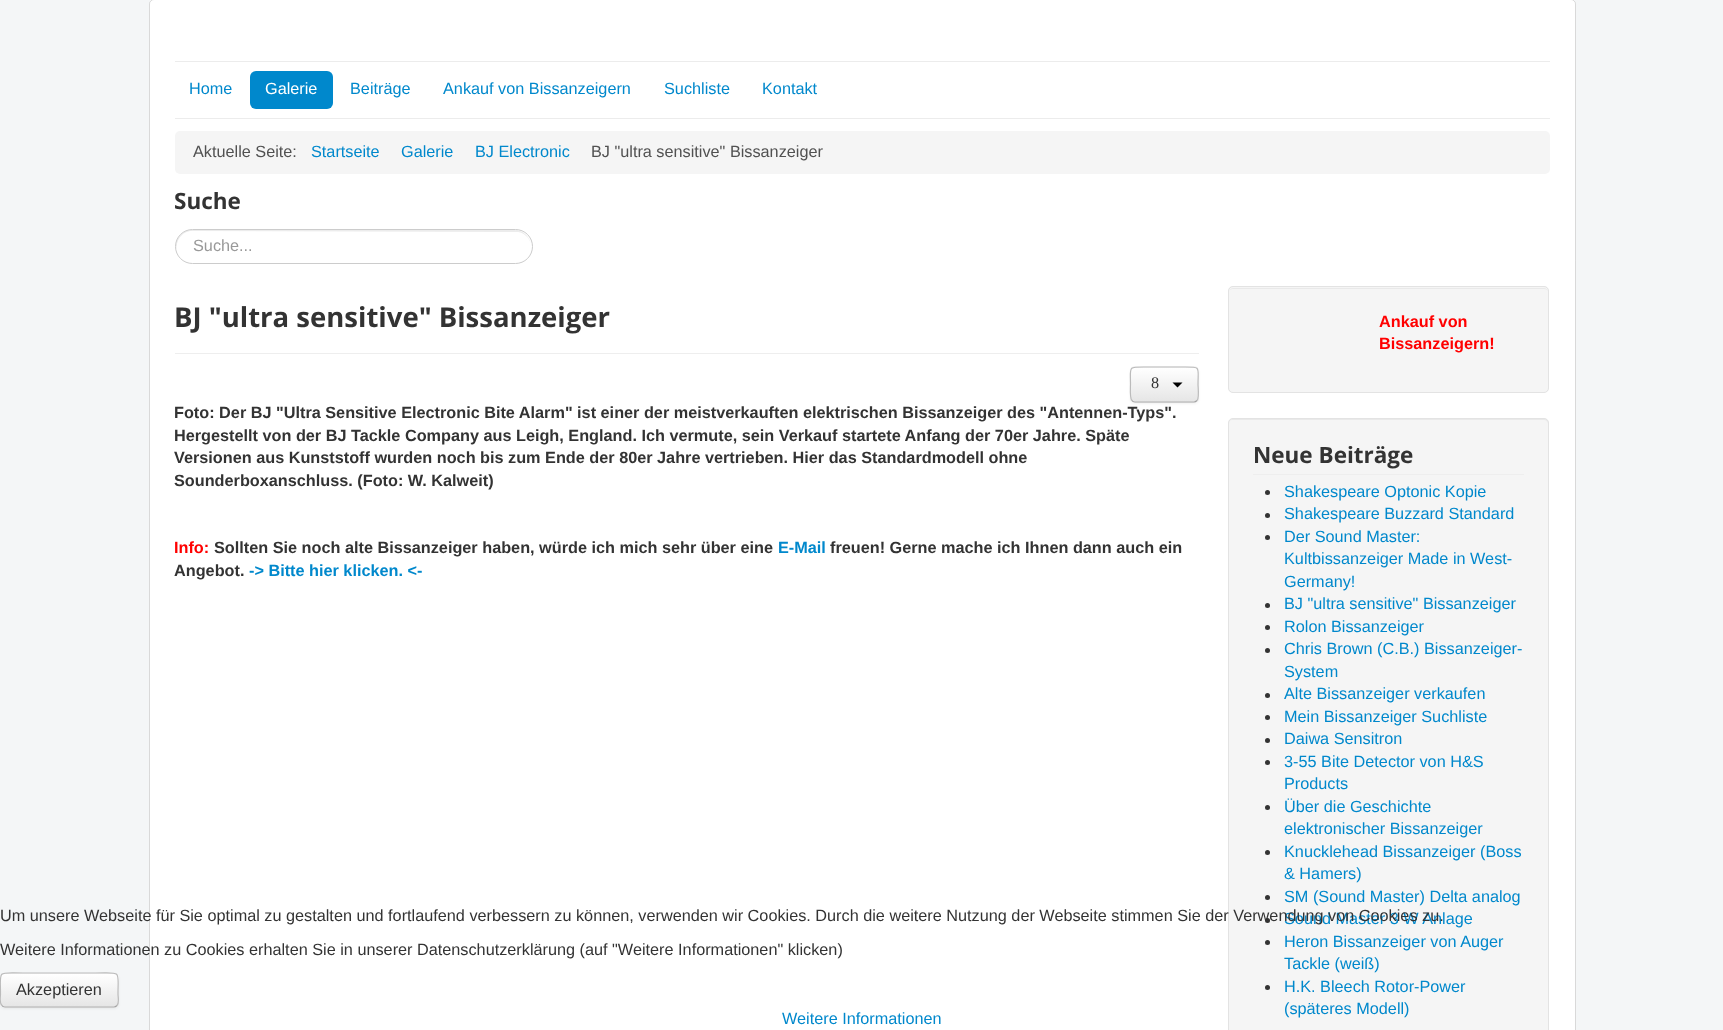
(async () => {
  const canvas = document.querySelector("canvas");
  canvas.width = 1723;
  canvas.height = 1030;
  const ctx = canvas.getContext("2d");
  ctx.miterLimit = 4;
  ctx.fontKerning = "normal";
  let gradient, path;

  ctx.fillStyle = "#f4f6f7";
  ctx.fillRect(0, 0, 1723, 1030);
  ctx.fillStyle = "#ffffff";
  ctx.beginPath();
  ctx.roundRect(149, -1, 1427, 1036, 5);
  ctx.fill();
  ctx.beginPath();
  ctx.roundRect(149.5, -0.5, 1426, 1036, 4.5);
  ctx.strokeStyle = "rgba(0, 0, 0, 0.15)";
  ctx.stroke();
  ctx.fillStyle = "#ececec";
  ctx.fillRect(175, 61, 1375, 1);
  ctx.fillRect(175, 118, 1375, 1);
  ctx.fillStyle = "#0088cc";
  ctx.beginPath();
  ctx.roundRect(250, 71, 83, 38, 6);
  ctx.fill();
  ctx.fillStyle = "#f5f5f5";
  ctx.beginPath();
  ctx.roundRect(175, 131, 1375, 43, 5);
  ctx.fill();
  ctx.fillStyle = "#ececec";
  path = new Path2D("M192 231L518 232C525 233 529 238 531 244C529 236 523 230 514 230H192C183 230 176 237 176 246L177 251C175 241 182 231 192 231Z");
  ctx.fill(path);
  ctx.beginPath();
  ctx.roundRect(175.5, 229.5, 357, 34, 17);
  ctx.strokeStyle = "#cccccc";
  ctx.stroke();
  ctx.fillStyle = "#eeeeee";
  ctx.fillRect(175, 353, 1024, 1);
  ctx.fillStyle = "rgba(0, 0, 0, 0.05)";
  ctx.filter = "blur(1px)";
  ctx.beginPath();
  ctx.roundRect(1130, 368, 69, 36, 5);
  ctx.fill();
  ctx.filter = "none";
  ctx.fillStyle = "#f5f5f5";
  ctx.beginPath();
  ctx.roundRect(1130, 366, 69, 37, 5);
  ctx.fill();
  ctx.save();
  ctx.beginPath();
  ctx.roundRect(1130, 366, 69, 37, 5);
  ctx.clip();
  gradient = ctx.createLinearGradient(1164, 368, 1164, 401);
  gradient.addColorStop(0, "#ffffff");
  gradient.addColorStop(1, "#e6e6e6");
  ctx.fillStyle = gradient;
  ctx.fillRect(1130, 368, 69, 33);
  ctx.restore();
  path = new Path2D("M1197 400.5C1196 401.5 1195 402 1194 402H1135C1134 402 1132.5 401.5 1132 400.5");
  ctx.strokeStyle = "#a2a2a2";
  ctx.lineWidth = 1.2;
  ctx.stroke(path);
  path = new Path2D("M1132 400.5C1129.5 398 1130.5 387.5 1130.5 384.5C1130.5 366.5 1127.5 367 1145 367H1184C1201.5 367 1198 366.5 1198 384.5C1198 387.5 1199.5 398 1197 400.5");
  ctx.strokeStyle = "#bbbbbb";
  ctx.stroke(path);
  ctx.fillStyle = "#000000";
  path = new Path2D("M1172.5 382.5H1182.5L1177.5 387.5Z");
  ctx.fill(path);
  ctx.fillStyle = "#f5f5f5";
  ctx.beginPath();
  ctx.roundRect(1228, 286, 321, 107, 5);
  ctx.fill();
  ctx.fillStyle = "#e9e9e9";
  path = new Path2D("M1232 289H1544C1546 289 1548 290 1548 292C1548 290 1546 288 1544 288H1233C1232 288 1230 289 1230 290Z");
  ctx.fill(path);
  ctx.beginPath();
  ctx.roundRect(1228.5, 286.5, 320, 106, 4.5);
  ctx.strokeStyle = "#e3e3e3";
  ctx.lineWidth = 1;
  ctx.stroke();
  ctx.fillStyle = "#f5f5f5";
  ctx.beginPath();
  ctx.roundRect(1228, 418, 321, 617, 5);
  ctx.fill();
  ctx.fillStyle = "#e9e9e9";
  path = new Path2D("M1232 420H1544C1546 420 1548 422 1548 424V423C1548 421 1546 419 1544 419H1233C1231 419 1229 421 1229 423V424C1229 422 1230 420 1232 420Z");
  ctx.fill(path);
  ctx.beginPath();
  ctx.roundRect(1228.5, 418.5, 320, 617, 4.5);
  ctx.stroke();
  ctx.fillStyle = "#eeeeee";
  ctx.fillRect(1253, 474, 271, 1);
  ctx.fillStyle = "#333333";
  ctx.beginPath();
  ctx.arc(1267.5, 492.5, 2.5, 0, Math.PI * 2);
  ctx.fill();
  ctx.beginPath();
  ctx.arc(1267.5, 515.5, 2.5, 0, Math.PI * 2);
  ctx.fill();
  ctx.beginPath();
  ctx.arc(1267.5, 537.5, 2.5, 0, Math.PI * 2);
  ctx.fill();
  ctx.beginPath();
  ctx.arc(1267.5, 605.5, 2.5, 0, Math.PI * 2);
  ctx.fill();
  ctx.beginPath();
  ctx.arc(1267.5, 627.5, 2.5, 0, Math.PI * 2);
  ctx.fill();
  ctx.beginPath();
  ctx.arc(1267.5, 650.5, 2.5, 0, Math.PI * 2);
  ctx.fill();
  ctx.beginPath();
  ctx.arc(1267.5, 695.5, 2.5, 0, Math.PI * 2);
  ctx.fill();
  ctx.beginPath();
  ctx.arc(1267.5, 717.5, 2.5, 0, Math.PI * 2);
  ctx.fill();
  ctx.beginPath();
  ctx.arc(1267.5, 740.5, 2.5, 0, Math.PI * 2);
  ctx.fill();
  ctx.beginPath();
  ctx.arc(1267.5, 762.5, 2.5, 0, Math.PI * 2);
  ctx.fill();
  ctx.beginPath();
  ctx.arc(1267.5, 807.5, 2.5, 0, Math.PI * 2);
  ctx.fill();
  ctx.beginPath();
  ctx.arc(1267.5, 852.5, 2.5, 0, Math.PI * 2);
  ctx.fill();
  ctx.beginPath();
  ctx.arc(1267.5, 897.5, 2.5, 0, Math.PI * 2);
  ctx.fill();
  ctx.beginPath();
  ctx.arc(1267.5, 920.5, 2.5, 0, Math.PI * 2);
  ctx.fill();
  ctx.beginPath();
  ctx.arc(1267.5, 942.5, 2.5, 0, Math.PI * 2);
  ctx.fill();
  ctx.beginPath();
  ctx.arc(1267.5, 987.5, 2.5, 0, Math.PI * 2);
  ctx.fill();
  ctx.fillStyle = "rgba(0, 0, 0, 0.05)";
  ctx.filter = "blur(1px)";
  ctx.beginPath();
  ctx.roundRect(0, 974, 119, 35, 5);
  ctx.fill();
  ctx.filter = "none";
  ctx.fillStyle = "#f5f5f5";
  ctx.beginPath();
  ctx.roundRect(0, 973, 119, 35, 5);
  ctx.fill();
  ctx.save();
  ctx.beginPath();
  ctx.roundRect(0, 973, 119, 35, 5);
  ctx.clip();
  gradient = ctx.createLinearGradient(59, 974, 59, 1006);
  gradient.addColorStop(0, "#ffffff");
  gradient.addColorStop(1, "#e6e6e6");
  ctx.fillStyle = gradient;
  ctx.fillRect(0, 974, 119, 32);
  ctx.restore();
  path = new Path2D("M117 1005.5C116 1006.5 115 1007 114 1007H5C4 1007 2.5 1006.5 2 1005.5");
  ctx.strokeStyle = "#a2a2a2";
  ctx.lineWidth = 1.2;
  ctx.stroke(path);
  path = new Path2D("M2 1005.5C-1 1003 .5 997.5 .5 994C.5 969.5-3.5 973 23 973H95.5C122 973 118 969.5 118 994C118 997.5 119.5 1003 117 1005.5");
  ctx.strokeStyle = "#bbbbbb";
  ctx.stroke(path);
  ctx.font = "16.25px Liberation Sans";
  ctx.fillStyle = "#0088cc";
  ctx.fillText("Home", 189, 94);
  ctx.fillStyle = "#ffffff";
  ctx.fillText("Galerie", 265, 94);
  ctx.fillStyle = "#0088cc";
  for (const [text, x, y] of [
    ["Beiträge", 350, 94],
    ["Ankauf von Bissanzeigern", 443, 94],
    ["Suchliste", 664, 94],
    ["Kontakt", 762, 94],
  ]) {
    ctx.fillText(text, x, y);
  }
  ctx.fillStyle = "#515151";
  ctx.fillText("Aktuelle Seite:", 193, 157);
  ctx.fillStyle = "#0088cc";
  for (const [text, x, y] of [
    ["Startseite", 311, 157],
    ["Galerie", 401, 157],
    ["BJ Electronic", 475, 157],
  ]) {
    ctx.fillText(text, x, y);
  }
  ctx.fillStyle = "#515151";
  ctx.fillText("BJ \"ultra sensitive\" Bissanzeiger", 591, 157);
  ctx.font = "bold 22.5px Open Sans";
  ctx.fillStyle = "#333333";
  ctx.fillText("Suche", 174, 209);
  ctx.font = "16.25px Liberation Sans";
  ctx.fillStyle = "#999999";
  ctx.fillText("Suche...", 193, 251);
  ctx.font = "bold 27.5px Open Sans";
  ctx.fillStyle = "#333333";
  ctx.fillText("BJ \"ultra sensitive\" Bissanzeiger", 174, 327);
  ctx.font = "16.25px Liberation Serif";
  ctx.fillText("8", 1151, 388);
  ctx.font = "bold 16.25px Liberation Sans";
  for (const [text, x, y] of [
    ["Foto: Der BJ \"Ultra Sensitive Electronic Bite Alarm\" ist einer der meistverkauften elektrischen Bissanzeiger des \"Antennen-Typs\".", 174, 418],
    ["Hergestellt von der BJ Tackle Company aus Leigh, England. Ich vermute, sein Verkauf startete Anfang der 70er Jahre. Späte", 174, 441],
    ["Versionen aus Kunststoff wurden noch bis zum Ende der 80er Jahre vertrieben. Hier das Standardmodell ohne", 174, 463],
    ["Sounderboxanschluss. (Foto: W. Kalweit)", 174, 486],
  ]) {
    ctx.fillText(text, x, y);
  }
  ctx.fillStyle = "#ff0000";
  ctx.fillText("Info:", 174, 553);
  ctx.fillStyle = "#333333";
  ctx.fillText("Sollten Sie noch alte Bissanzeiger haben, würde ich mich sehr über eine", 214, 553);
  ctx.fillStyle = "#0088cc";
  ctx.fillText("E-Mail", 778, 553);
  ctx.fillStyle = "#333333";
  ctx.fillText("freuen! Gerne mache ich Ihnen dann auch ein", 830, 553);
  ctx.fillText("Angebot.", 174, 576);
  ctx.fillStyle = "#0088cc";
  ctx.fillText("-> Bitte hier klicken. <-", 249, 576);
  ctx.fillStyle = "#ff0000";
  ctx.fillText("Ankauf von", 1379, 327);
  ctx.fillText("Bissanzeigern!", 1379, 349);
  ctx.font = "bold 22.5px Open Sans";
  ctx.fillStyle = "#333333";
  ctx.fillText("Neue Beiträge", 1253, 463);
  ctx.font = "16.25px Liberation Sans";
  ctx.fillStyle = "#0088cc";
  for (const [text, x, y] of [
    ["Shakespeare Optonic Kopie", 1284, 497],
    ["Shakespeare Buzzard Standard", 1284, 519],
    ["Der Sound Master:", 1284, 542],
    ["Kultbissanzeiger Made in West-", 1284, 564],
    ["Germany!", 1284, 587],
    ["BJ \"ultra sensitive\" Bissanzeiger", 1284, 609],
    ["Rolon Bissanzeiger", 1284, 632],
    ["Chris Brown (C.B.) Bissanzeiger-", 1284, 654],
    ["System", 1284, 677],
    ["Alte Bissanzeiger verkaufen", 1284, 699],
    ["Mein Bissanzeiger Suchliste", 1284, 722],
    ["Daiwa Sensitron", 1284, 744],
    ["3-55 Bite Detector von H&S", 1284, 767],
    ["Products", 1284, 789],
    ["Über die Geschichte", 1284, 812],
    ["elektronischer Bissanzeiger", 1284, 834],
    ["Knucklehead Bissanzeiger (Boss", 1284, 857],
    ["& Hamers)", 1284, 879],
    ["SM (Sound Master) Delta analog", 1284, 902],
    ["Sound Master 3 W Anlage", 1284, 924],
    ["Heron Bissanzeiger von Auger", 1284, 947],
    ["Tackle (weiß)", 1284, 969],
    ["H.K. Bleech Rotor-Power", 1284, 992],
    ["(späteres Modell)", 1284, 1014],
  ]) {
    ctx.fillText(text, x, y);
  }
  ctx.fillStyle = "#333333";
  for (const [text, x, y] of [
    ["Um unsere Webseite für Sie optimal zu gestalten und fortlaufend verbessern zu können, verwenden wir Cookies. Durch die weitere Nutzung der Webseite stimmen Sie der Verwendung von Cookies zu.", 0, 921],
    ["Weitere Informationen zu Cookies erhalten Sie in unserer Datenschutzerklärung (auf \"Weitere Informationen\" klicken)", 0, 955],
    ["Akzeptieren", 16, 995],
  ]) {
    ctx.fillText(text, x, y);
  }
  ctx.fillStyle = "#0088cc";
  ctx.fillText("Weitere Informationen", 782, 1024);
})();
